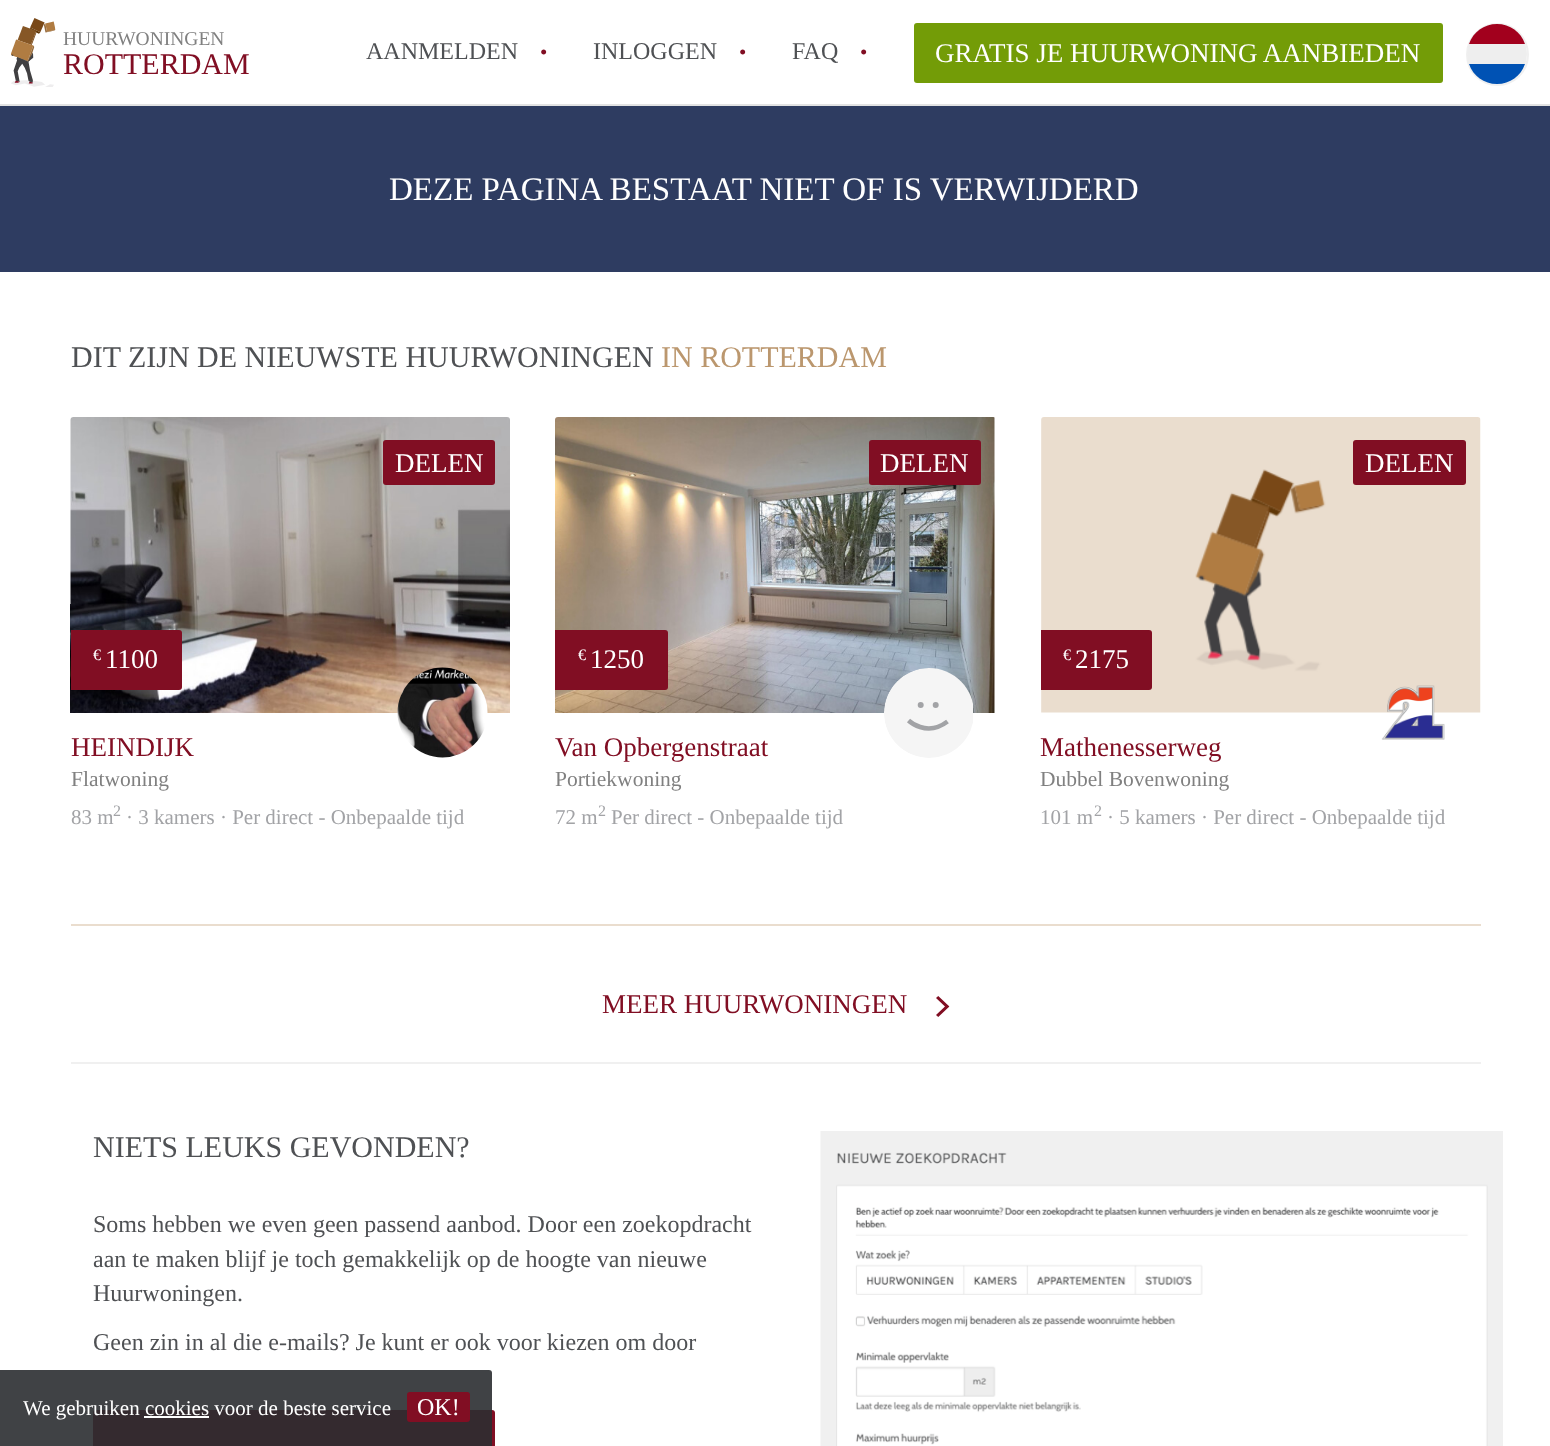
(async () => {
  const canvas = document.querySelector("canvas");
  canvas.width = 1550;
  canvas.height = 1446;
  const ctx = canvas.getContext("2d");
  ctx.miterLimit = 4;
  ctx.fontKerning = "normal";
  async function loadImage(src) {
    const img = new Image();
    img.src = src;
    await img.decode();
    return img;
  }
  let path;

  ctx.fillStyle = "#ffffff";
  ctx.fillRect(0, 0, 1550, 1446);
  ctx.fillStyle = "#e3e3e3";
  ctx.fillRect(0, 104, 1550, 2);
  ctx.drawImage(await loadImage("img/1.png"), 11, 18, 45, 69);
  ctx.fillStyle = "#739c07";
  ctx.beginPath();
  ctx.roundRect(914, 23, 529, 60, 3);
  ctx.fill();
  ctx.beginPath();
  ctx.arc(1497.5, 54.5, 30.5, 0, Math.PI * 2);
  ctx.strokeStyle = "#f0f0f0";
  ctx.lineWidth = 2;
  ctx.stroke();
  ctx.fillStyle = "#eeeeee";
  ctx.beginPath();
  ctx.arc(1497, 54, 30, 0, Math.PI * 2);
  ctx.fill();
  ctx.fillStyle = "#a2001d";
  path = new Path2D("M1497 24C1484 24 1473 32 1469 44H1525C1521 32 1510 24 1497 24Z");
  ctx.fill(path);
  ctx.fillStyle = "#0052b4";
  path = new Path2D("M1497 84C1484 84 1473 76 1469 64H1525C1521 76 1510 84 1497 84Z");
  ctx.fill(path);
  ctx.fillStyle = "#2e3c61";
  ctx.fillRect(0, 106, 1550, 166);
  ctx.drawImage(await loadImage("img/2.png"), 70, 417, 440, 296);
  ctx.fillStyle = "#810e23";
  ctx.beginPath();
  ctx.roundRect(383, 440, 112, 45, 3);
  ctx.fill();
  ctx.beginPath();
  ctx.roundRect(71, 630, 111, 60, [0, 3, 3, 0]);
  ctx.fill();
  ctx.drawImage(await loadImage("img/3.png"), 397, 667, 91, 91);
  ctx.drawImage(await loadImage("img/4.png"), 555, 417, 440, 296);
  ctx.beginPath();
  ctx.roundRect(869, 440, 112, 45, 3);
  ctx.fill();
  ctx.beginPath();
  ctx.roundRect(555, 630, 113, 60, [0, 3, 3, 0]);
  ctx.fill();
  ctx.save();
  ctx.beginPath();
  ctx.roundRect(884, 668, 90, 90, 45);
  ctx.clip();
  ctx.fillStyle = "#f5f5f5";
  ctx.beginPath();
  ctx.roundRect(884, 668, 89, 90, [45, 0, 0, 45]);
  ctx.fill();
  ctx.restore();
  path = new Path2D("M908.5 720.5C908.5 720.5 926.5 737.5 947.5 721.5");
  ctx.strokeStyle = "#a2a3a6";
  ctx.lineWidth = 4.5;
  ctx.stroke(path);
  ctx.fillStyle = "#a2a3a6";
  ctx.beginPath();
  ctx.arc(920.7, 705, 3, 0, Math.PI * 2);
  ctx.fill();
  ctx.beginPath();
  ctx.arc(935.7, 705, 3, 0, Math.PI * 2);
  ctx.fill();
  ctx.drawImage(await loadImage("img/5.png"), 1041, 417, 440, 296);
  ctx.fillStyle = "#810e23";
  ctx.beginPath();
  ctx.roundRect(1353, 440, 113, 45, 3);
  ctx.fill();
  ctx.beginPath();
  ctx.roundRect(1041, 630, 111, 60, [0, 3, 3, 0]);
  ctx.fill();
  ctx.drawImage(await loadImage("img/6.png"), 1381, 685, 64, 55);
  ctx.fillStyle = "#eaddce";
  ctx.fillRect(71, 924, 1410, 2);
  ctx.drawImage(await loadImage("img/7.png"), 936, 996, 14, 21);
  ctx.fillStyle = "#f0f0f0";
  ctx.fillRect(71, 1062, 1410, 2);
  ctx.fillStyle = "#810e23";
  ctx.beginPath();
  ctx.roundRect(93, 1410, 402, 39, 3);
  ctx.fill();
  ctx.drawImage(await loadImage("img/8.png"), 820, 1131, 683, 315);
  ctx.fillStyle = "rgba(43, 45, 49, 0.9)";
  ctx.beginPath();
  ctx.roundRect(0, 1370, 492, 76, [0, 3, 0, 0]);
  ctx.fill();
  ctx.fillStyle = "#810e23";
  ctx.beginPath();
  ctx.roundRect(407, 1392, 63, 30, 3);
  ctx.fill();
  ctx.fillStyle = "#ffffff";
  ctx.fillRect(144, 1416, 65, 2);
  ctx.font = "19.5px Liberation Serif";
  ctx.fillStyle = "#808080";
  ctx.fillText("HUURWONINGEN", 63, 45);
  ctx.font = "30px Liberation Serif";
  ctx.fillStyle = "#810e23";
  ctx.fillText("ROTTERDAM", 63, 74);
  ctx.font = "24px Liberation Serif";
  ctx.fillStyle = "#4f5154";
  ctx.fillText("AANMELDEN", 366, 59);
  ctx.font = "21px Liberation Serif";
  ctx.fillStyle = "#810e23";
  ctx.fillText("•", 540, 59);
  ctx.font = "24px Liberation Serif";
  ctx.fillStyle = "#4f5154";
  ctx.fillText("INLOGGEN", 593, 59);
  ctx.font = "21px Liberation Serif";
  ctx.fillStyle = "#810e23";
  ctx.fillText("•", 739, 59);
  ctx.font = "24px Liberation Serif";
  ctx.fillStyle = "#4f5154";
  ctx.fillText("FAQ", 792, 59);
  ctx.font = "21px Liberation Serif";
  ctx.fillStyle = "#810e23";
  ctx.fillText("•", 860, 59);
  ctx.font = "27px Liberation Serif";
  ctx.fillStyle = "#ffffff";
  ctx.fillText("GRATIS JE HUURWONING AANBIEDEN", 935, 62);
  ctx.font = "33px Liberation Serif";
  ctx.fillText("DEZE PAGINA BESTAAT NIET OF IS VERWIJDERD", 389, 200);
  ctx.font = "30px Liberation Serif";
  ctx.fillStyle = "#4f5154";
  ctx.fillText("DIT ZIJN DE NIEUWSTE HUURWONINGEN", 71, 367);
  ctx.fillStyle = "#bb976e";
  ctx.fillText("IN ROTTERDAM", 661, 367);
  ctx.font = "27px Liberation Serif";
  ctx.fillStyle = "#ffffff";
  ctx.fillText("DELEN", 395, 472);
  ctx.font = "16px Liberation Serif";
  ctx.fillText("€", 93, 660);
  ctx.font = "27px Liberation Serif";
  ctx.fillText("1100", 105, 668);
  ctx.fillStyle = "#810e23";
  ctx.fillText("HEINDIJK", 71, 756);
  ctx.font = "21.5px Liberation Serif";
  ctx.fillStyle = "#808080";
  ctx.fillText("Flatwoning", 71, 786);
  ctx.font = "21px Liberation Serif";
  ctx.fillStyle = "#a2a3a6";
  ctx.fillText("83 m", 71, 824);
  ctx.font = "16px Liberation Serif";
  ctx.fillText("2", 113, 816);
  ctx.font = "21px Liberation Serif";
  ctx.fillText("· 3 kamers · Per direct - Onbepaalde tijd", 126, 824);
  ctx.font = "27px Liberation Serif";
  ctx.fillStyle = "#ffffff";
  ctx.fillText("DELEN", 880, 472);
  ctx.font = "16px Liberation Serif";
  ctx.fillText("€", 578, 660);
  ctx.font = "27px Liberation Serif";
  ctx.fillText("1250", 590, 668);
  ctx.fillStyle = "#810e23";
  ctx.fillText("Van Opbergenstraat", 555, 756);
  ctx.font = "21.5px Liberation Serif";
  ctx.fillStyle = "#808080";
  ctx.fillText("Portiekwoning", 555, 786);
  ctx.font = "21px Liberation Serif";
  ctx.fillStyle = "#a2a3a6";
  ctx.fillText("72 m", 555, 824);
  ctx.font = "16px Liberation Serif";
  ctx.fillText("2", 598, 816);
  ctx.font = "21px Liberation Serif";
  ctx.fillText("Per direct - Onbepaalde tijd", 611, 824);
  ctx.font = "27px Liberation Serif";
  ctx.fillStyle = "#ffffff";
  ctx.fillText("DELEN", 1365, 472);
  ctx.font = "16px Liberation Serif";
  ctx.fillText("€", 1063, 660);
  ctx.font = "27px Liberation Serif";
  ctx.fillText("2175", 1075, 668);
  ctx.fillStyle = "#810e23";
  ctx.fillText("Mathenesserweg", 1040, 756);
  ctx.font = "21.5px Liberation Serif";
  ctx.fillStyle = "#808080";
  ctx.fillText("Dubbel Bovenwoning", 1040, 786);
  ctx.font = "21px Liberation Serif";
  ctx.fillStyle = "#a2a3a6";
  ctx.fillText("101 m", 1040, 824);
  ctx.font = "16px Liberation Serif";
  ctx.fillText("2", 1094, 816);
  ctx.font = "21px Liberation Serif";
  ctx.fillText("· 5 kamers · Per direct - Onbepaalde tijd", 1107, 824);
  ctx.font = "27px Liberation Serif";
  ctx.fillStyle = "#810e23";
  ctx.fillText("MEER HUURWONINGEN", 602, 1013);
  ctx.font = "30px Liberation Serif";
  ctx.fillStyle = "#4f5154";
  ctx.fillText("NIETS LEUKS GEVONDEN?", 93, 1157);
  ctx.font = "24px Liberation Serif";
  for (const [text, x, y] of [
    ["Soms hebben we even geen passend aanbod. Door een zoekopdracht", 93, 1232],
    ["aan te maken blijf je toch gemakkelijk op de hoogte van nieuwe", 93, 1267],
    ["Huurwoningen.", 93, 1301],
    ["Geen zin in al die e-mails? Je kunt er ook voor kiezen om door", 93, 1350],
  ]) {
    ctx.fillText(text, x, y);
  }
  ctx.font = "21px Liberation Serif";
  ctx.fillStyle = "#ffffff";
  ctx.fillText("We gebruiken cookies voor de beste service", 23, 1415);
  ctx.font = "24px Liberation Serif";
  ctx.fillText("OK!", 417, 1415);
})();
